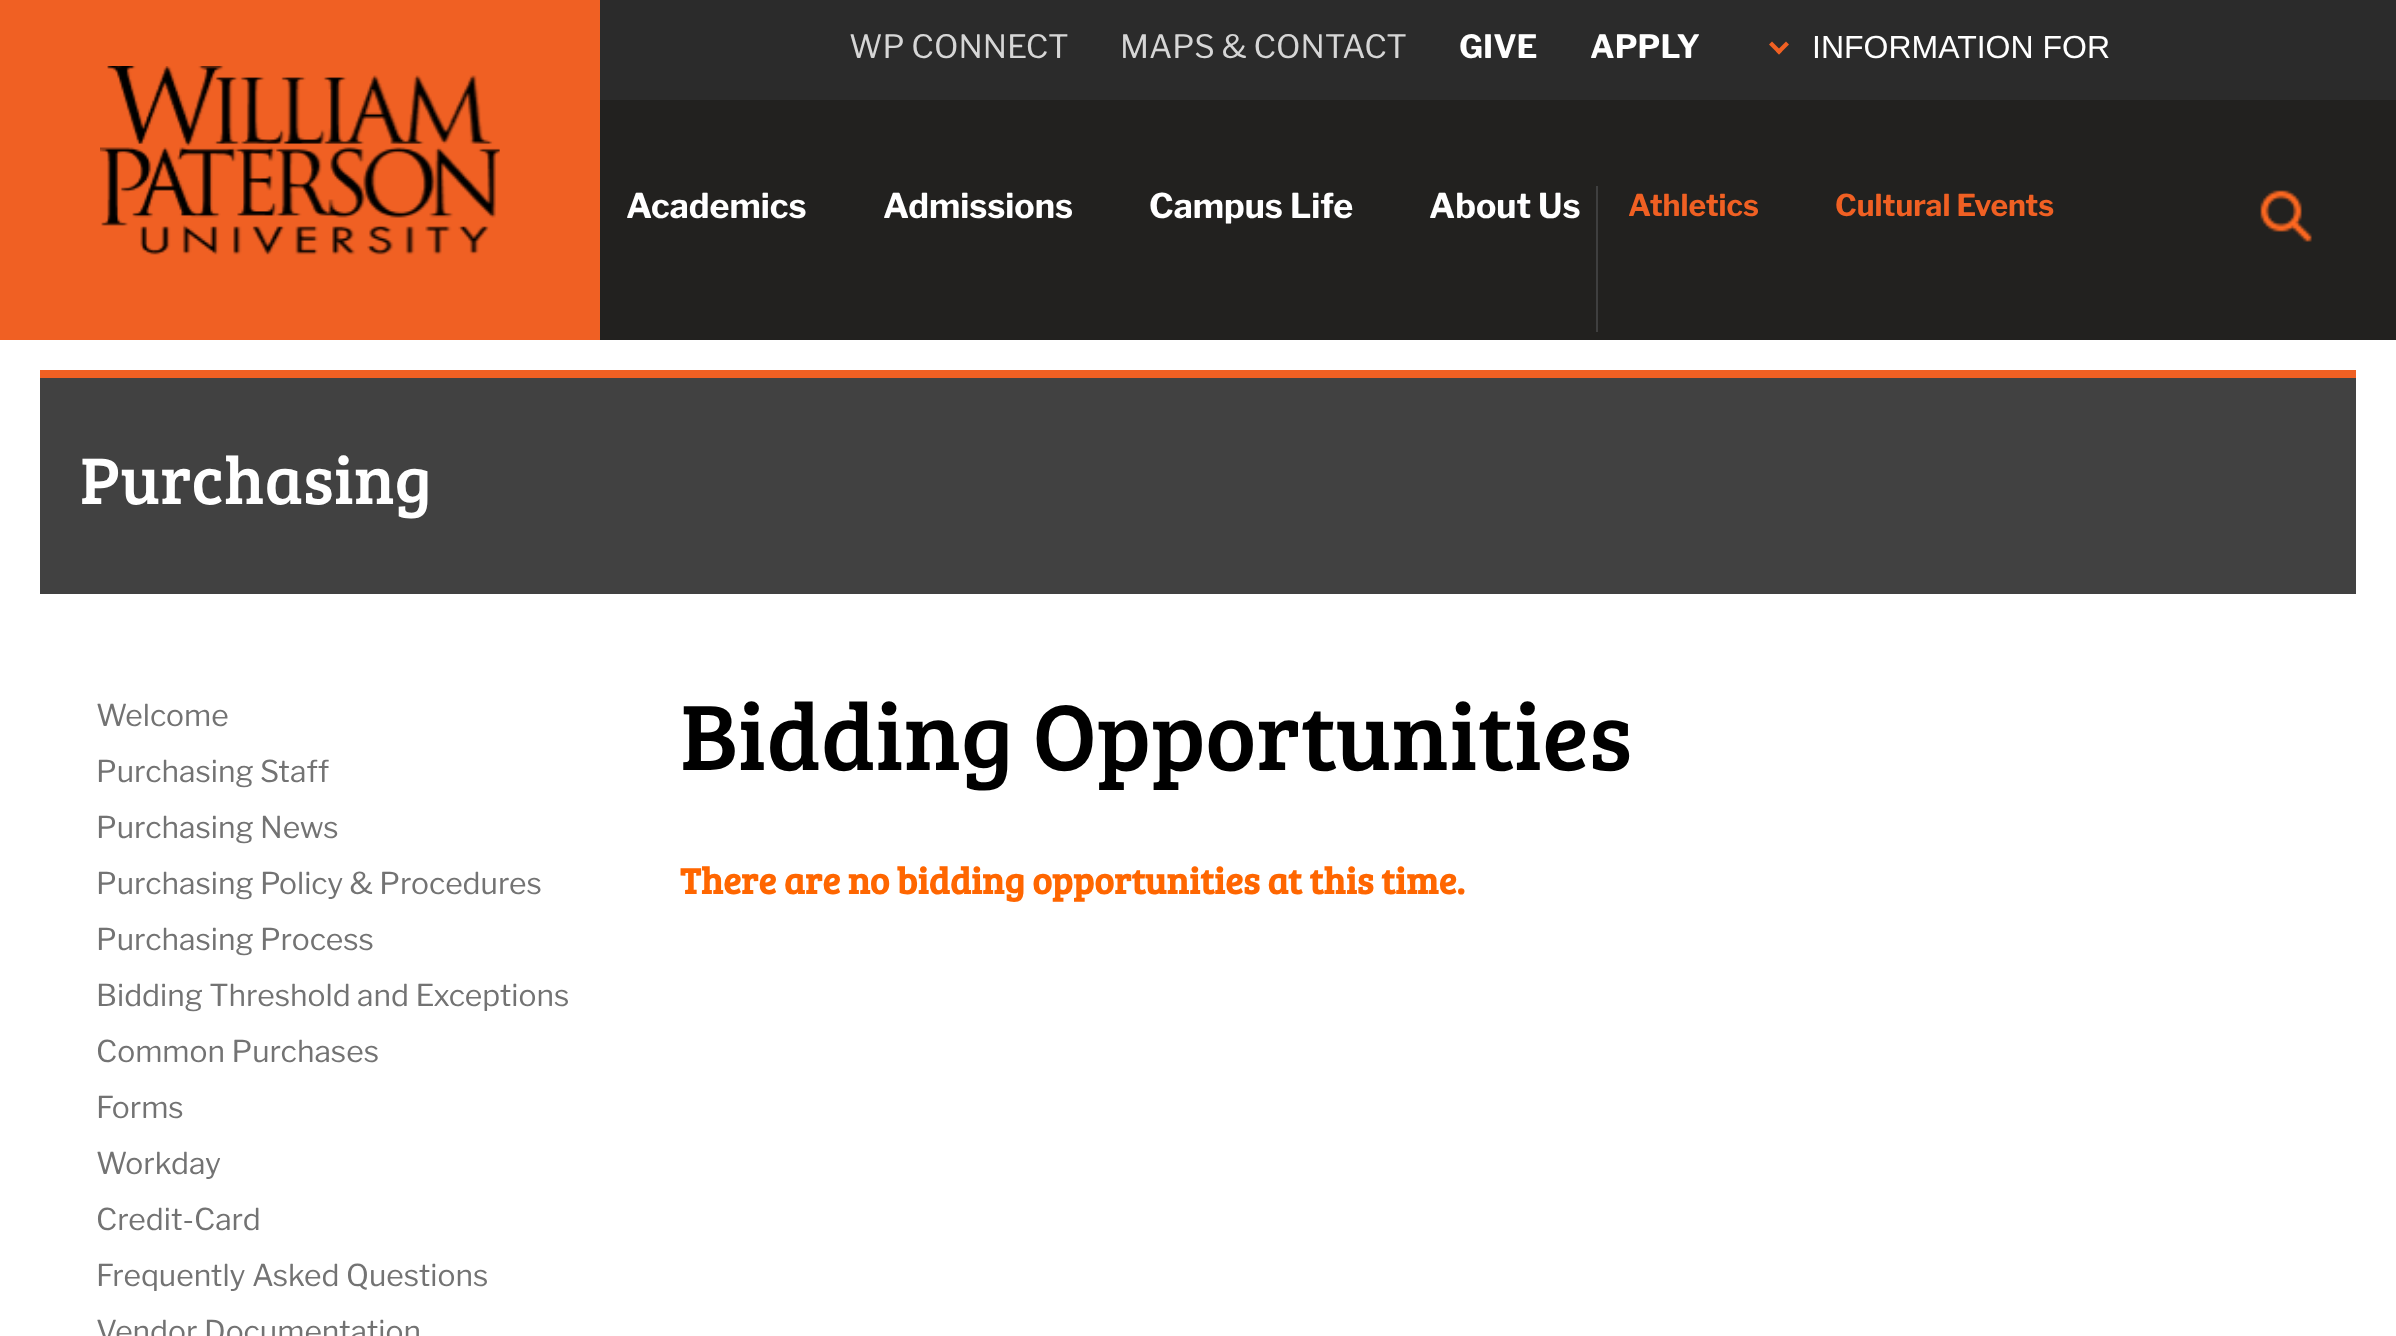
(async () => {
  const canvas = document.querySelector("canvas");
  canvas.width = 2396;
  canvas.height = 1336;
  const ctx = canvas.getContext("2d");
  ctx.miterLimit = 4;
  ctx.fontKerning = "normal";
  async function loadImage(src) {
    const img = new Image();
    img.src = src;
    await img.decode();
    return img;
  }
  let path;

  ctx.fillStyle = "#ffffff";
  ctx.fillRect(0, 0, 2396, 1336);
  ctx.fillStyle = "#22211f";
  ctx.fillRect(600, 100, 1796, 240);
  ctx.fillStyle = "#f06023";
  ctx.fillRect(0, 0, 600, 340);
  ctx.drawImage(await loadImage("img/1.png"), 100, 66, 400, 189);
  ctx.fillStyle = "#2b2b2b";
  ctx.fillRect(600, 0, 1796, 100);
  ctx.fillStyle = "#f06023";
  path = new Path2D("M1786 41.5L1789 44.5L1779 54.5L1776 51.5Z");
  ctx.fill(path);
  path = new Path2D("M1772 41.5L1782 51.5L1779 54.5L1769 44.5Z");
  ctx.fill(path);
  ctx.fillStyle = "#3f3f3f";
  ctx.fillRect(1596, 186, 2, 146);
  ctx.drawImage(await loadImage("img/2.png"), 2260, 190, 52, 52);
  ctx.fillStyle = "#414141";
  ctx.fillRect(40, 378, 2316, 216);
  ctx.fillStyle = "#f06023";
  ctx.fillRect(40, 370, 2316, 8);
  ctx.font = "32px Libre Franklin";
  ctx.fillStyle = "#d6d6d6";
  ctx.fillText("WP CONNECT", 849, 58);
  ctx.fillText("MAPS & CONTACT", 1120, 58);
  ctx.font = "bold 32px Libre Franklin";
  ctx.fillStyle = "#ffffff";
  ctx.fillText("GIVE", 1459, 58);
  ctx.fillText("APPLY", 1590, 58);
  ctx.font = "32px Liberation Sans";
  ctx.fillText("INFORMATION FOR", 1812, 58);
  ctx.font = "bold 34px Libre Franklin";
  for (const [text, x, y] of [
    ["Academics", 626, 218],
    ["Admissions", 883, 218],
    ["Campus Life", 1149, 218],
    ["About Us", 1429, 218],
  ]) {
    ctx.fillText(text, x, y);
  }
  ctx.font = "bold 30px Libre Franklin";
  ctx.fillStyle = "#f06023";
  ctx.fillText("Athletics", 1628, 216);
  ctx.fillText("Cultural Events", 1835, 216);
  ctx.font = "68px Bree Serif";
  ctx.fillStyle = "#ffffff";
  ctx.fillText("Purchasing", 80, 504);
  ctx.font = "30px Libre Franklin";
  ctx.fillStyle = "#737373";
  for (const [text, x, y] of [
    ["Welcome", 96, 726],
    ["Purchasing Staff", 96, 782],
    ["Purchasing News", 96, 838],
    ["Purchasing Policy & Procedures", 96, 894],
    ["Purchasing Process", 96, 950],
    ["Bidding Threshold and Exceptions", 96, 1006],
    ["Common Purchases", 96, 1062],
    ["Forms", 96, 1118],
    ["Workday", 96, 1174],
    ["Credit-Card", 96, 1230],
    ["Frequently Asked Questions", 96, 1286],
    ["Vendor Documentation", 96, 1342],
  ]) {
    ctx.fillText(text, x, y);
  }
  ctx.font = "96px Bree Serif";
  ctx.fillStyle = "#000000";
  ctx.fillText("Bidding Opportunities", 680, 770);
  ctx.font = "bold 37.3px Bree Serif";
  ctx.fillStyle = "#ff6600";
  ctx.fillText("There are no bidding opportunities at this time.", 680, 894);
})();
